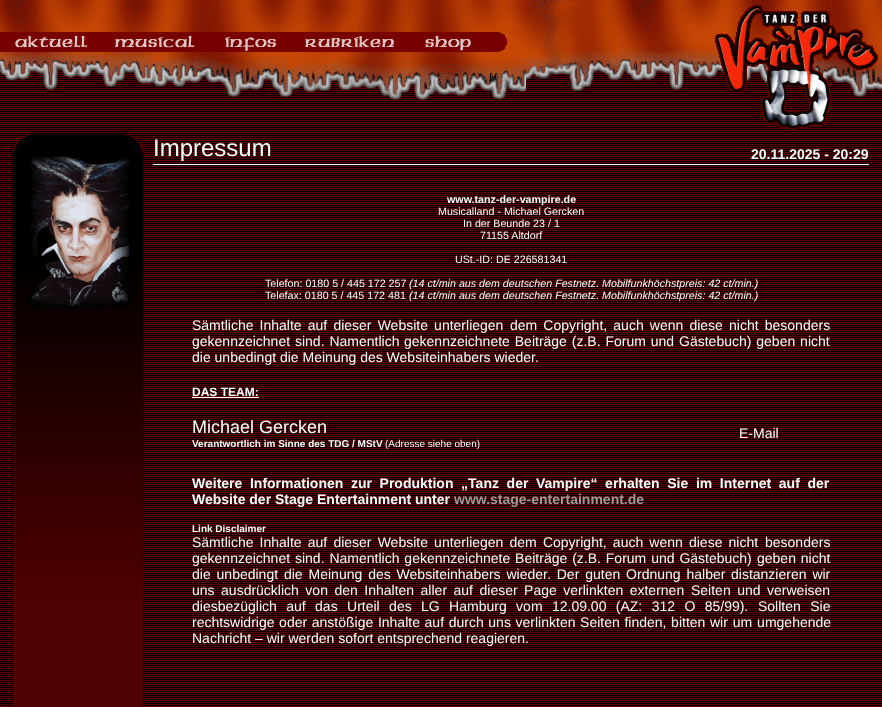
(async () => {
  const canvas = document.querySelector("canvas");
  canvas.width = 882;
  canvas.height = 707;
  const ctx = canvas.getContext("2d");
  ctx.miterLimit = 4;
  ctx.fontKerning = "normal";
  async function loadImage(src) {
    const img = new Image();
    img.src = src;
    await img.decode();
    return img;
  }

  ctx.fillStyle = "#ffffff";
  ctx.fillRect(0, 0, 882, 707);
  ctx.drawImage(await loadImage("img/1.png"), 0, 70, 882, 637);
  ctx.drawImage(await loadImage("img/2.png"), 0, 0, 882, 100);
  ctx.drawImage(await loadImage("img/3.png"), 0, 32, 100, 20);
  ctx.drawImage(await loadImage("img/4.png"), 100, 32, 110, 20);
  ctx.drawImage(await loadImage("img/5.png"), 210, 32, 80, 20);
  ctx.drawImage(await loadImage("img/6.png"), 290, 32, 120, 20);
  ctx.drawImage(await loadImage("img/7.png"), 410, 32, 97, 20);
  ctx.drawImage(await loadImage("img/8.png"), 715, 5, 163, 125);
  ctx.drawImage(await loadImage("img/9.png"), 13, 154, 130, 553);
  ctx.drawImage(await loadImage("img/10.png"), 13, 134, 130, 20);
  ctx.drawImage(await loadImage("img/11.png"), 28, 156, 101, 153);
  ctx.fillRect(153, 164, 716, 1);
  ctx.fillRect(192, 397, 67, 1);
  ctx.font = "24px Liberation Sans";
  ctx.fillText("Impressum", 153, 156);
  ctx.font = "bold 14px Liberation Sans";
  ctx.fillText("20.11.2025 - 20:29", 751, 159);
  ctx.font = "bold 10.7px Liberation Sans";
  ctx.fillText("www.tanz-der-vampire.de", 447, 203);
  ctx.font = "10.7px Liberation Sans";
  for (const [text, x, y] of [
    ["Musicalland - Michael Gercken", 438, 215],
    ["In der Beunde 23 / 1", 463, 227],
    ["71155 Altdorf", 480, 239],
    ["USt.-ID: DE 226581341", 455, 263],
    ["Telefon: 0180 5 / 445 172 257", 265, 287],
  ]) {
    ctx.fillText(text, x, y);
  }
  ctx.font = "italic 10.7px Liberation Sans";
  ctx.fillText("(14 ct/min aus dem deutschen Festnetz. Mobilfunkhöchstpreis: 42 ct/min.)", 409, 287);
  ctx.font = "10.7px Liberation Sans";
  ctx.fillText("Telefax: 0180 5 / 445 172 481", 265, 299);
  ctx.font = "italic 10.7px Liberation Sans";
  ctx.fillText("(14 ct/min aus dem deutschen Festnetz. Mobilfunkhöchstpreis: 42 ct/min.)", 409, 299);
  ctx.wordSpacing = "2.25px";
  ctx.font = "14px Liberation Sans";
  ctx.fillText("Sämtliche Inhalte auf dieser Website unterliegen", 192, 330);
  ctx.fillText("dem Copyright, auch wenn diese nicht besonders", 510, 330);
  ctx.wordSpacing = "1px";
  ctx.fillText("gekennzeichnet sind. Namentlich", 192, 346);
  ctx.fillText("gekennzeichnete Beiträge (z.B. Forum und Gästebuch) geben nicht", 404, 346);
  ctx.wordSpacing = "0px";
  ctx.fillText("die unbedingt die Meinung des Websiteinhabers wieder.", 192, 362);
  ctx.font = "bold 12px Liberation Sans";
  ctx.fillText("DAS TEAM:", 192, 396);
  ctx.font = "18px Liberation Sans";
  ctx.fillText("Michael Gercken", 192, 433);
  ctx.font = "bold 10px Liberation Sans";
  ctx.fillText("Verantwortlich im Sinne des TDG / MStV", 192, 447);
  ctx.font = "10px Liberation Sans";
  ctx.fillText("(Adresse siehe oben)", 385, 447);
  ctx.font = "14px Liberation Sans";
  ctx.fillText("E-Mail", 739, 438);
  ctx.wordSpacing = "3.75px";
  ctx.font = "bold 14px Liberation Sans";
  ctx.fillText("Weitere Informationen zur Produktion „Tanz der Vampire“ erhalten Sie im Internet auf der", 192, 488);
  ctx.wordSpacing = "0px";
  ctx.fillText("Website der Stage Entertainment unter", 192, 504);
  ctx.fillStyle = "#9b9b9b";
  ctx.fillText("www.stage-entertainment.de", 454, 504);
  ctx.font = "bold 10px Liberation Sans";
  ctx.fillStyle = "#ffffff";
  ctx.fillText("Link Disclaimer", 192, 532);
  ctx.wordSpacing = "2.25px";
  ctx.font = "14px Liberation Sans";
  ctx.fillText("Sämtliche Inhalte auf dieser Website unterliegen dem Copyright, auch wenn diese nicht", 192, 547);
  ctx.wordSpacing = "0px";
  ctx.fillText("besonders", 765, 547);
  ctx.wordSpacing = "1px";
  ctx.fillText("gekennzeichnet sind. Namentlich gekennzeichnete Beiträge (z.B. Forum und Gästebuch)", 192, 563);
  ctx.fillText("geben nicht", 757, 563);
  ctx.wordSpacing = "2px";
  ctx.fillText("die unbedingt die Meinung des Websiteinhabers wieder. Der guten Ordnung halber", 192, 579);
  ctx.fillText("distanzieren wir", 731, 579);
  ctx.wordSpacing = "2.6px";
  ctx.fillText("uns ausdrücklich von den Inhalten aller auf dieser Page verlinkten externen", 192, 595);
  ctx.fillText("Seiten und verweisen", 691, 595);
  ctx.wordSpacing = "5.5px";
  ctx.fillText("diesbezüglich auf das Urteil des LG Hamburg vom 12.09.00 (AZ: 312 O 85/99).", 192, 611);
  ctx.fillText("Sollten Sie", 758, 611);
  ctx.wordSpacing = "0.75px";
  ctx.fillText("rechtswidrige oder anstößige Inhalte auf durch uns verlinkten Seiten finden, bitten", 192, 627);
  ctx.wordSpacing = "1px";
  ctx.fillText("wir um umgehende", 710, 627);
  ctx.wordSpacing = "0px";
  ctx.fillText("Nachricht – wir werden sofort entsprechend reagieren.", 192, 643);
})();
